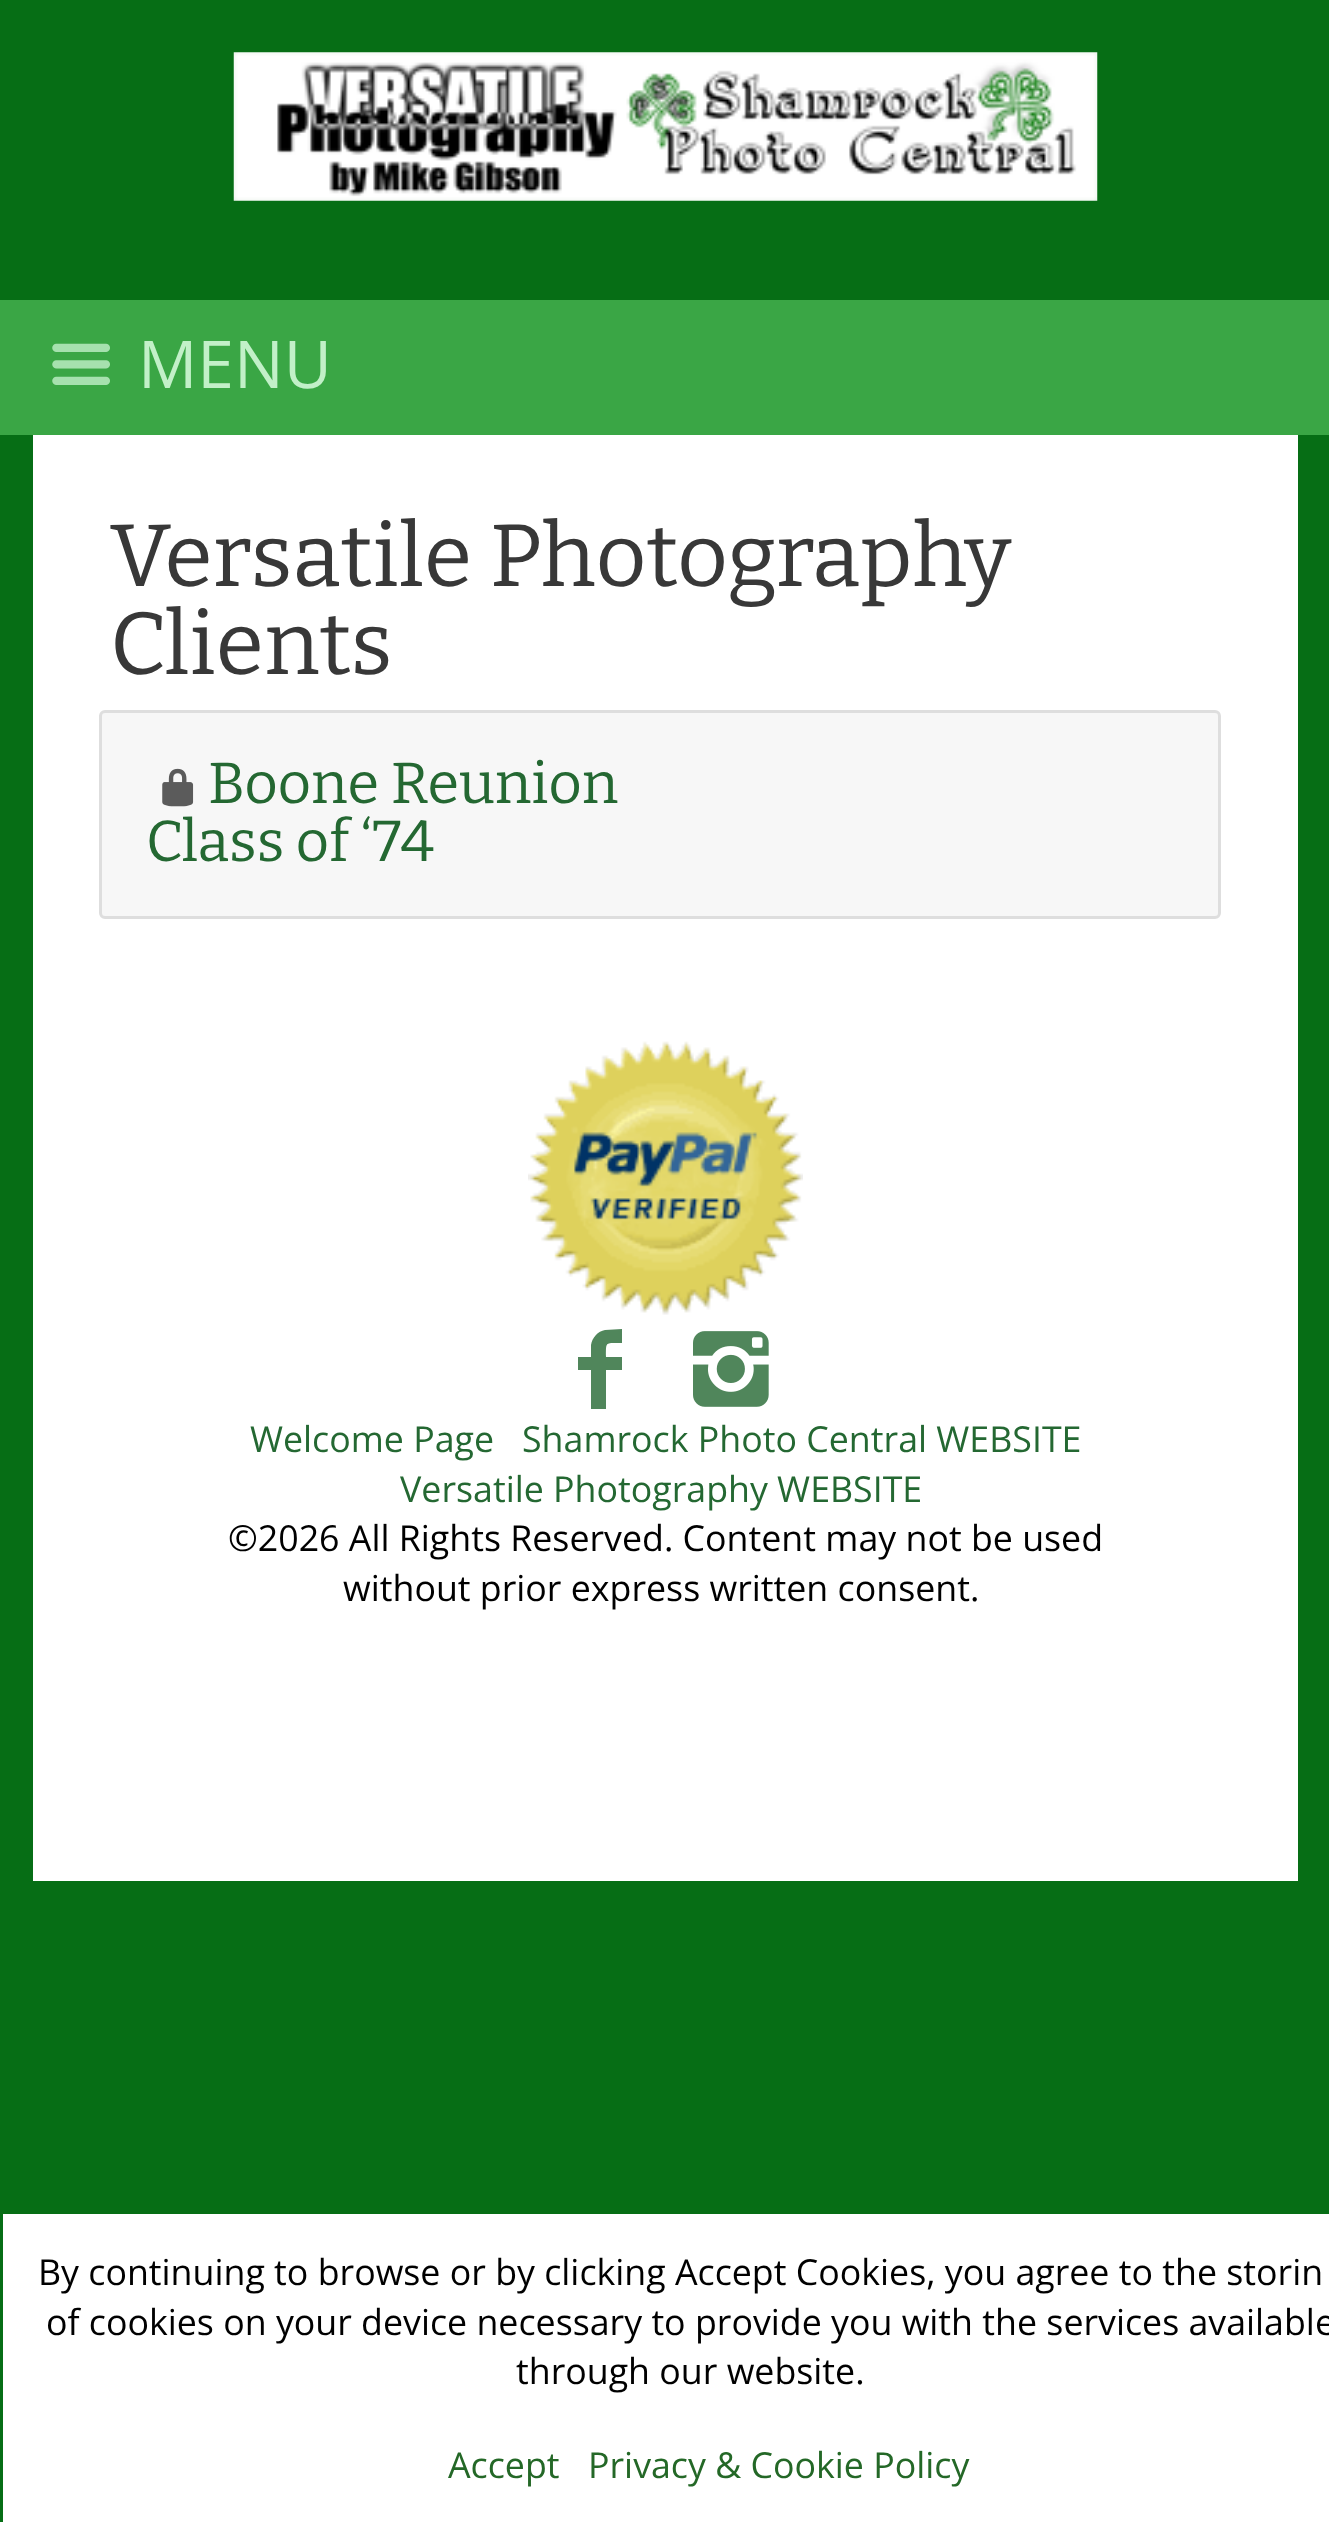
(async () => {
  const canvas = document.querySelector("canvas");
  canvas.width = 1329;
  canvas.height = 2522;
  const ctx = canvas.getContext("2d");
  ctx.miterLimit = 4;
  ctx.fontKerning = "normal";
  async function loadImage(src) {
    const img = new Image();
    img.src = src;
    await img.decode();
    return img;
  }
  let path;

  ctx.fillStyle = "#066e15";
  ctx.fillRect(0, 0, 1329, 2522);
  ctx.drawImage(await loadImage("img/1.png"), 233, 52, 865, 149);
  ctx.fillStyle = "#3aa645";
  ctx.fillRect(0, 300, 1329, 135);
  ctx.drawImage(await loadImage("img/2.png"), 52, 343, 58, 42);
  ctx.fillStyle = "#ffffff";
  ctx.fillRect(33, 435, 1265, 1446);
  ctx.fillStyle = "#f7f7f7";
  ctx.beginPath();
  ctx.roundRect(100.5, 711.5, 1119, 206, 4.5);
  ctx.fill();
  ctx.strokeStyle = "#dedede";
  ctx.lineWidth = 3;
  ctx.stroke();
  ctx.drawImage(await loadImage("img/3.png"), 162, 768, 32, 39);
  ctx.drawImage(await loadImage("img/4.png"), 528, 1041, 275, 274);
  ctx.fillStyle = "#50865b";
  path = new Path2D("M622 1343C605 1343 606 1341 606 1357H622V1370H606V1409H591V1370H578V1357H591V1345C592 1338 598 1331 605 1330L622 1329Z");
  ctx.fill(path);
  ctx.drawImage(await loadImage("img/5.png"), 693, 1331, 76, 76);
  ctx.fillStyle = "#ffffff";
  ctx.fillRect(3, 2214, 1326, 308);
  ctx.font = "66px Open Sans";
  ctx.fillStyle = "#c2f0c8";
  ctx.fillText("MENU", 138, 388);
  ctx.font = "88px Bitter";
  ctx.fillStyle = "#383838";
  ctx.fillText("Versatile Photography", 110, 586);
  ctx.fillText("Clients", 110, 674);
  ctx.font = "57.75px Bitter";
  ctx.fillStyle = "#246832";
  ctx.fillText("Boone Reunion", 208, 803);
  ctx.fillText("Class of ‘74", 146, 861);
  ctx.font = "35.75px Open Sans";
  for (const [text, x, y] of [
    ["Welcome Page", 250, 1452],
    ["Shamrock Photo Central WEBSITE", 522, 1452],
    ["Versatile Photography WEBSITE", 400, 1502],
  ]) {
    ctx.fillText(text, x, y);
  }
  ctx.fillStyle = "#000000";
  for (const [text, x, y] of [
    ["©2026 All Rights Reserved. Content may not be used", 228, 1551],
    ["without prior express written consent.", 343, 1601],
    ["By continuing to browse or by clicking Accept Cookies, you agree to the storin", 38, 2285],
    ["of cookies on your device necessary to provide you with the services available", 46, 2335],
    ["through our website.", 516, 2384],
  ]) {
    ctx.fillText(text, x, y);
  }
  ctx.fillStyle = "#246827";
  ctx.fillText("Accept", 448, 2478);
  ctx.fillText("Privacy & Cookie Policy", 588, 2478);
})();
